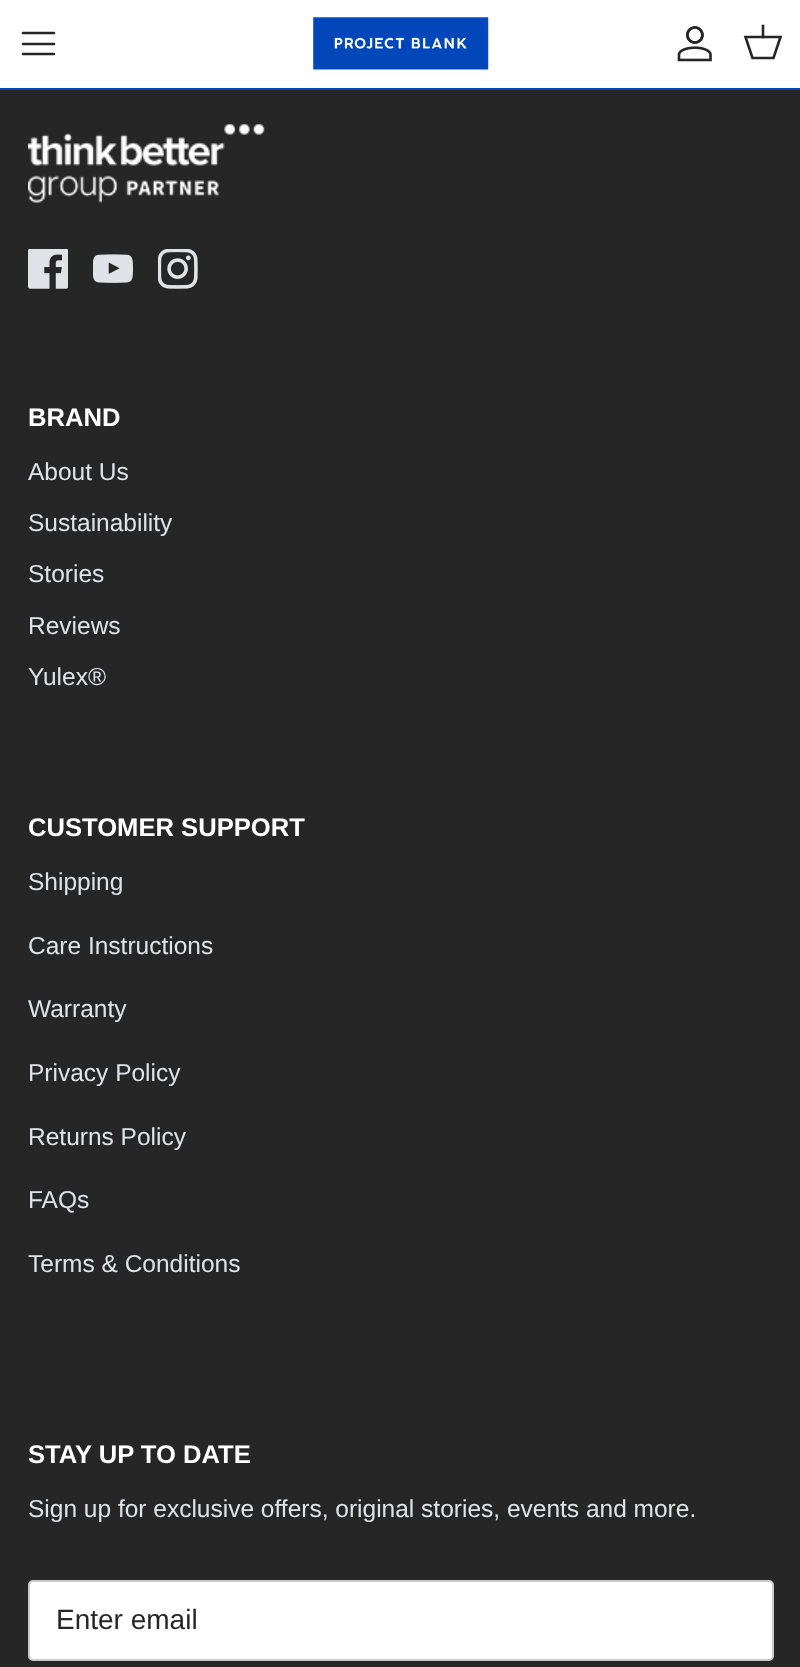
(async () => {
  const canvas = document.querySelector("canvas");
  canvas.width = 800;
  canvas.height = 1667;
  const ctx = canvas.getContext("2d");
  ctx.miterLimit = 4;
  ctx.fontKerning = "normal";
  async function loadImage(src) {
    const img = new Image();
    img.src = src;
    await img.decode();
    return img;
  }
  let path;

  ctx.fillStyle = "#262626";
  ctx.fillRect(0, 0, 800, 1667);
  ctx.fillStyle = "#ffffff";
  ctx.fillRect(0, 0, 800, 88);
  ctx.fillStyle = "#0047ba";
  ctx.fillRect(0, 88, 800, 2);
  path = new Path2D("M23 44H54M23 33H54M23 54H54");
  ctx.strokeStyle = "#262626";
  ctx.lineWidth = 2.6;
  ctx.lineCap = "round";
  ctx.lineJoin = "round";
  ctx.stroke(path);
  ctx.drawImage(await loadImage("img/1.png"), 313, 17, 176, 53);
  ctx.drawImage(await loadImage("img/2.png"), 677, 26, 35, 36);
  path = new Path2D("M745.5 37H780.5L773.5 58H752.5Z");
  ctx.lineCap = "butt";
  ctx.lineJoin = "miter";
  ctx.stroke(path);
  path = new Path2D("M763 37V26");
  ctx.lineCap = "square";
  ctx.stroke(path);
  ctx.drawImage(await loadImage("img/3.png"), 28, 124, 237, 79);
  ctx.drawImage(await loadImage("img/4.png"), 28, 249, 40, 40);
  ctx.drawImage(await loadImage("img/5.png"), 93, 254, 40, 29);
  ctx.drawImage(await loadImage("img/6.png"), 158, 249, 40, 40);
  ctx.fillStyle = "#ffffff";
  ctx.beginPath();
  ctx.roundRect(29, 1581, 744, 79, 4);
  ctx.fill();
  ctx.strokeStyle = "#c9c9c9";
  ctx.lineWidth = 2;
  ctx.stroke();
  ctx.font = "bold 25.6px Liberation Sans";
  ctx.fillText("BRAND", 28, 426);
  ctx.font = "24.5px Liberation Sans";
  ctx.fillStyle = "#dfe3e8";
  for (const [text, x, y] of [
    ["About Us", 28, 480],
    ["Sustainability", 28, 531],
    ["Stories", 28, 582],
    ["Reviews", 28, 634],
    ["Yulex®", 28, 685],
  ]) {
    ctx.fillText(text, x, y);
  }
  ctx.font = "bold 25.6px Liberation Sans";
  ctx.fillStyle = "#ffffff";
  ctx.fillText("CUSTOMER SUPPORT", 28, 836);
  ctx.font = "24.5px Liberation Sans";
  ctx.fillStyle = "#dfe3e8";
  for (const [text, x, y] of [
    ["Shipping", 28, 890],
    ["Care Instructions", 28, 954],
    ["Warranty", 28, 1017],
    ["Privacy Policy", 28, 1081],
    ["Returns Policy", 28, 1145],
    ["FAQs", 28, 1208],
    ["Terms & Conditions", 28, 1272],
  ]) {
    ctx.fillText(text, x, y);
  }
  ctx.font = "bold 25.6px Liberation Sans";
  ctx.fillStyle = "#ffffff";
  ctx.fillText("STAY UP TO DATE", 28, 1463);
  ctx.font = "24.5px Liberation Sans";
  ctx.fillStyle = "#dfe3e8";
  ctx.fillText("Sign up for exclusive offers, original stories, events and more.", 28, 1517);
  ctx.font = "28px Liberation Sans";
  ctx.fillStyle = "#262626";
  ctx.fillText("Enter email", 56, 1629);
})();
